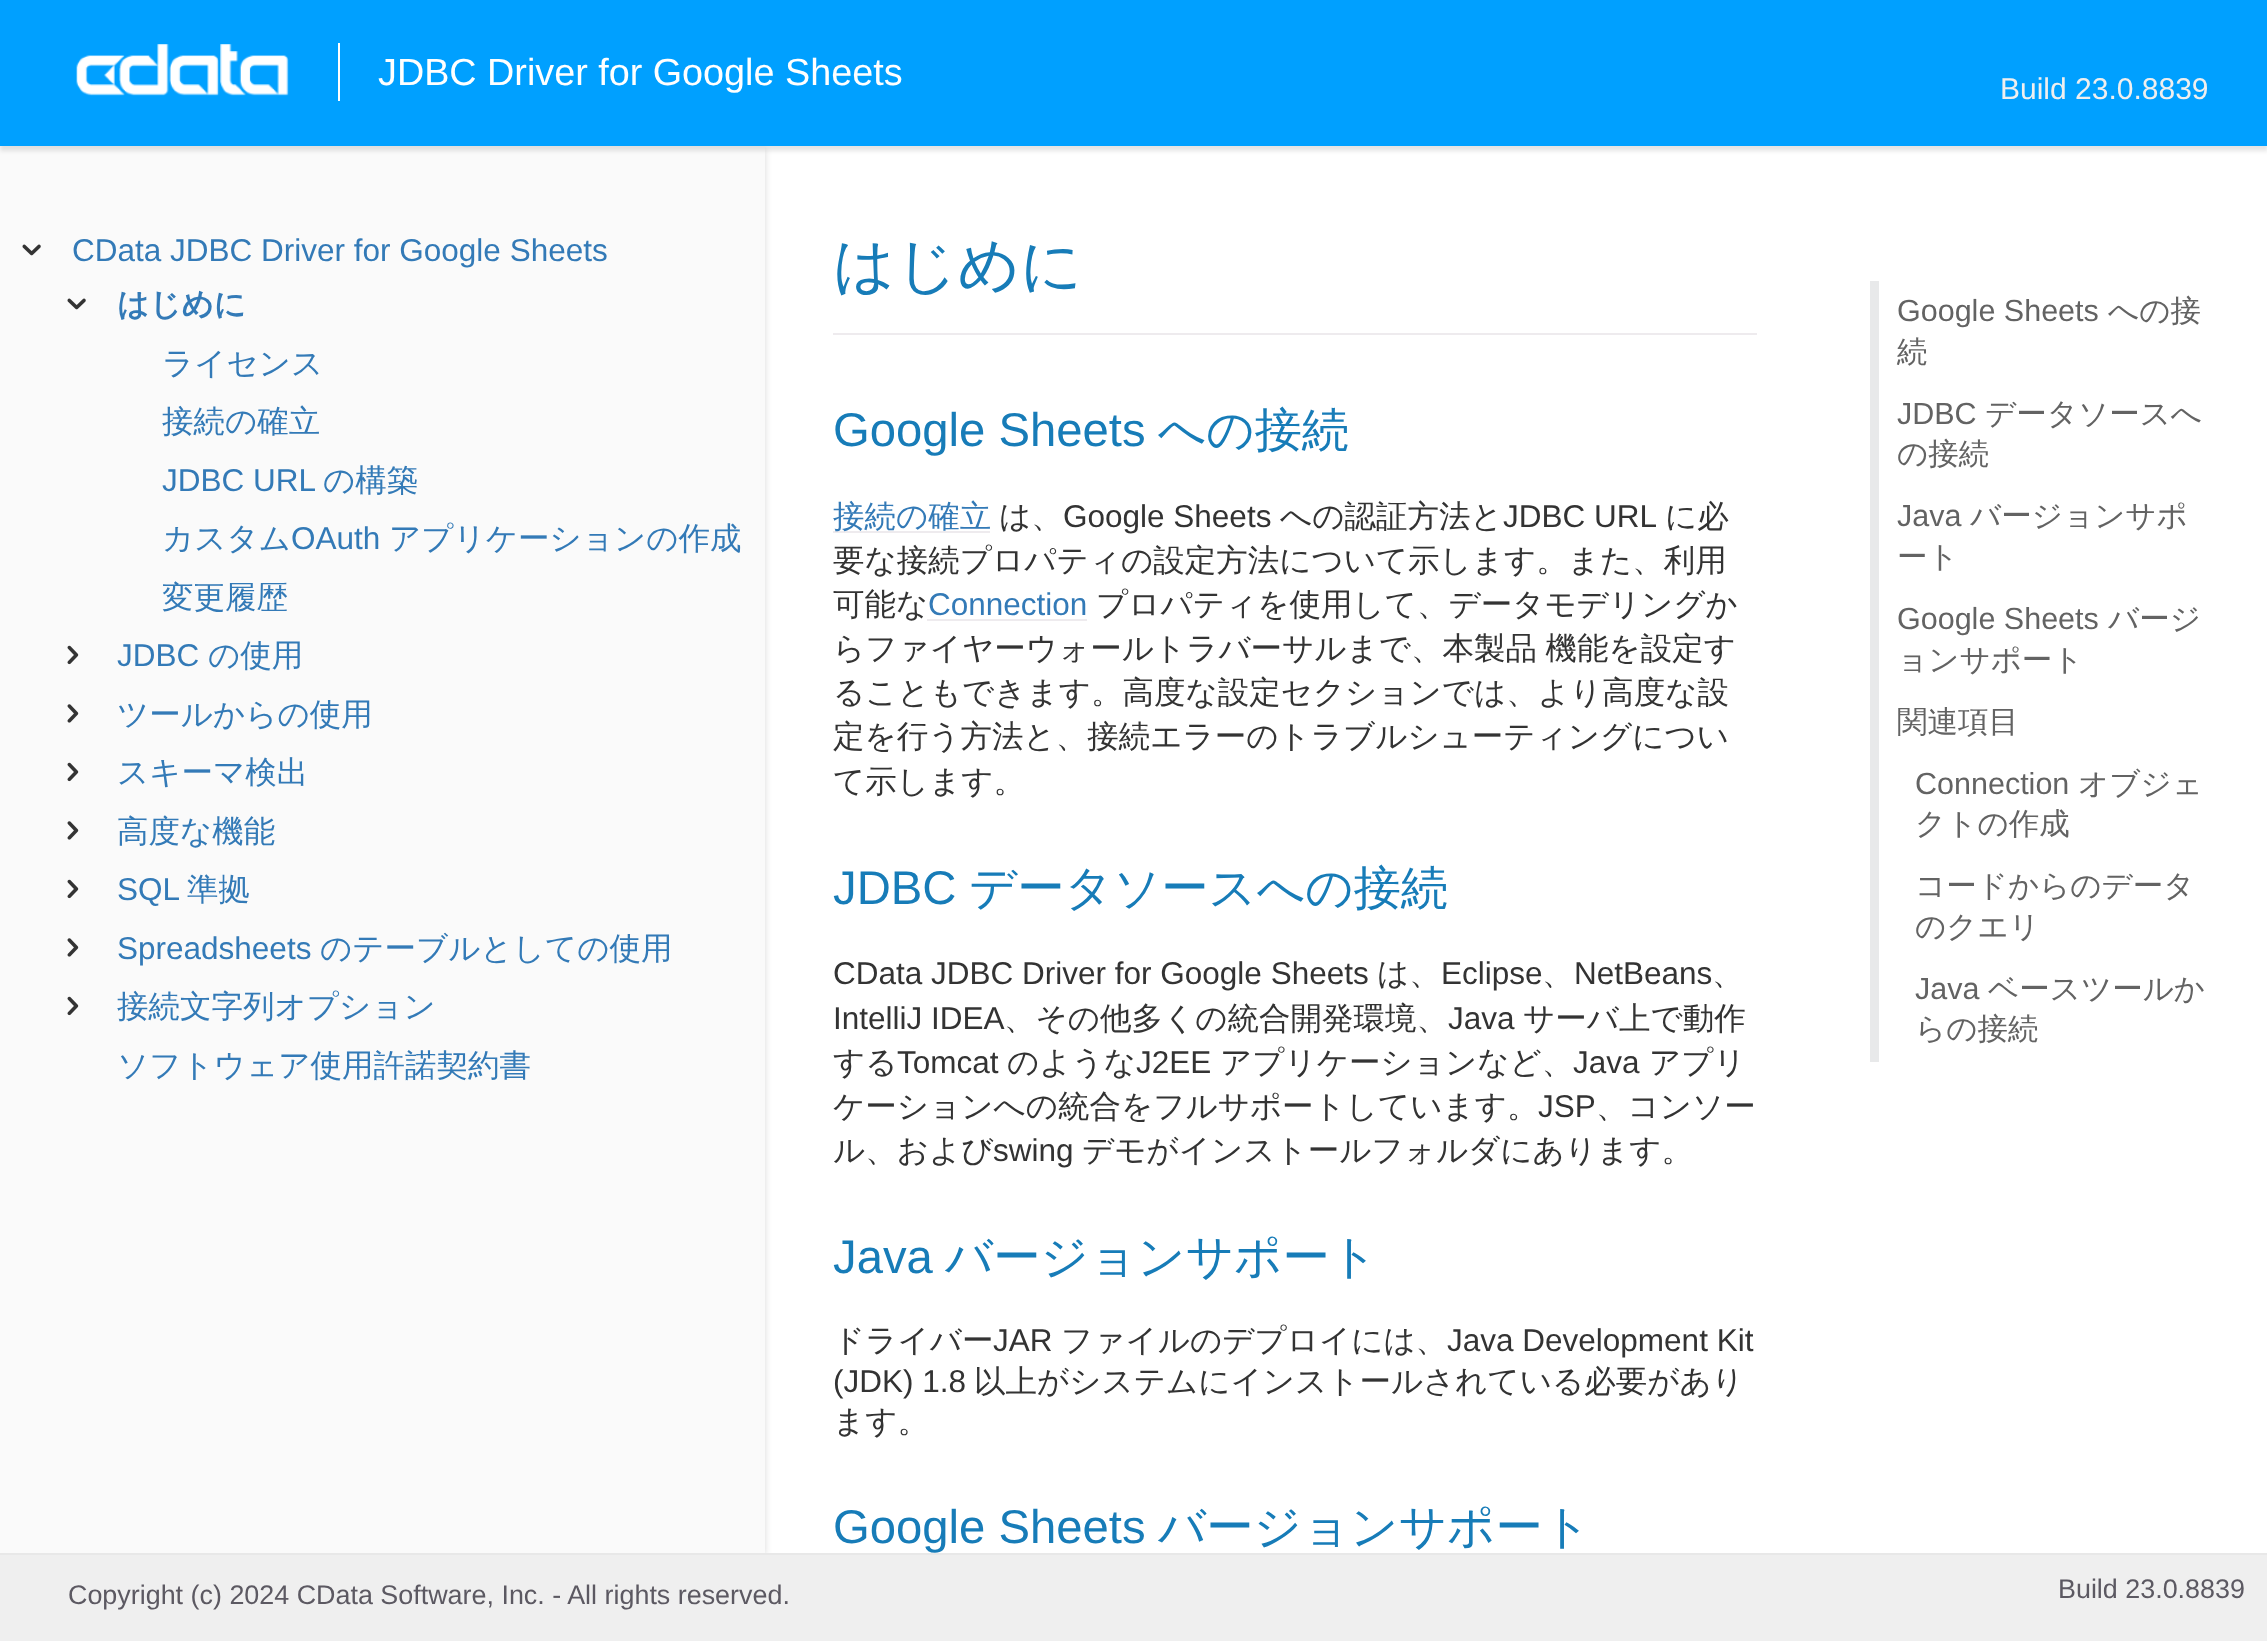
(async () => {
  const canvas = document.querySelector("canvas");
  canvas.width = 2267;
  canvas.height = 1641;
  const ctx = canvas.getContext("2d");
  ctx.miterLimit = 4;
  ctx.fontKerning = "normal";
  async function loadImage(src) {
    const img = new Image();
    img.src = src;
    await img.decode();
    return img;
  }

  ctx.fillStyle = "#ffffff";
  ctx.fillRect(0, 0, 2267, 1641);
  ctx.fillStyle = "rgba(0, 0, 0, 0.15)";
  ctx.filter = "blur(3.5px)";
  ctx.beginPath();
  ctx.rect(0, 149, 765, 1406);
  ctx.fill();
  ctx.filter = "none";
  ctx.fillStyle = "#fafafa";
  ctx.fillRect(0, 146, 765, 1407);
  ctx.fillStyle = "rgba(0, 0, 0, 0.1)";
  ctx.filter = "blur(2px)";
  ctx.beginPath();
  ctx.rect(0, 5, 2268, 146);
  ctx.fill();
  ctx.filter = "none";
  ctx.fillStyle = "#00a0ff";
  ctx.fillRect(0, 0, 2267, 146);
  ctx.drawImage(await loadImage("img/1.png"), 76, 44, 213, 52);
  ctx.fillStyle = "#ffffff";
  ctx.fillRect(338, 43, 2, 58);
  ctx.drawImage(await loadImage("img/2.png"), 22, 244, 19, 12);
  ctx.drawImage(await loadImage("img/2.png"), 67, 298, 19, 12);
  ctx.drawImage(await loadImage("img/3.png"), 67, 645, 12, 20);
  ctx.drawImage(await loadImage("img/4.png"), 67, 704, 12, 19);
  ctx.drawImage(await loadImage("img/3.png"), 67, 762, 12, 20);
  ctx.drawImage(await loadImage("img/4.png"), 67, 821, 12, 19);
  ctx.drawImage(await loadImage("img/3.png"), 67, 879, 12, 20);
  ctx.drawImage(await loadImage("img/4.png"), 67, 938, 12, 19);
  ctx.drawImage(await loadImage("img/3.png"), 67, 996, 12, 20);
  for (const [x, y, w, h, color] of [
    [833, 333, 924, 2, "#eeebee"],
    [833, 531, 157, 2, "#eeebee"],
    [927, 619, 160, 2, "#eeebee"],
    [1870, 281, 9, 781, "#e8e9ea"],
    [0, 1555, 2267, 86, "#efefef"],
    [0, 1553, 2267, 2, "#e8e8e8"],
  ]) {
    ctx.fillStyle = color;
    ctx.fillRect(x, y, w, h);
  }
  ctx.font = "37.75px Liberation Sans";
  ctx.fillStyle = "#ffffff";
  ctx.fillText("JDBC Driver for Google Sheets", 378, 85);
  ctx.font = "30px Liberation Sans";
  ctx.fillStyle = "#efefef";
  ctx.fillText("Build 23.0.8839", 2000, 99);
  ctx.font = "31.5px Liberation Sans";
  ctx.fillStyle = "#337ab7";
  ctx.fillText("CData JDBC Driver for Google Sheets", 72, 261);
  ctx.font = "bold 31.5px WenQuanYi Zen Hei";
  ctx.fillText("はじめに", 117, 315);
  ctx.font = "500 31.5px WenQuanYi Zen Hei";
  ctx.fillText("ライセンス", 162, 374);
  ctx.fillText("接続の確立", 162, 432);
  ctx.font = "31.5px Liberation Sans";
  ctx.fillText("JDBC URL", 162, 491);
  ctx.font = "500 31.5px WenQuanYi Zen Hei";
  ctx.fillText("の構築", 323, 491);
  ctx.fillText("カスタム", 162, 549);
  ctx.font = "31.5px Liberation Sans";
  ctx.fillText("OAuth", 291, 549);
  ctx.font = "500 31.5px WenQuanYi Zen Hei";
  ctx.fillText("アプリケーションの作成", 389, 549);
  ctx.fillText("変更履歴", 162, 608);
  ctx.font = "31.5px Liberation Sans";
  ctx.fillText("JDBC", 117, 666);
  ctx.font = "500 31.5px WenQuanYi Zen Hei";
  for (const [text, x, y] of [
    ["の使用", 208, 666],
    ["ツールからの使用", 117, 725],
    ["スキーマ検出", 117, 783],
    ["高度な機能", 117, 842],
  ]) {
    ctx.fillText(text, x, y);
  }
  ctx.font = "31.5px Liberation Sans";
  ctx.fillText("SQL", 117, 900);
  ctx.font = "500 31.5px WenQuanYi Zen Hei";
  ctx.fillText("準拠", 187, 900);
  ctx.font = "31.5px Liberation Sans";
  ctx.fillText("Spreadsheets", 117, 959);
  ctx.font = "500 31.5px WenQuanYi Zen Hei";
  for (const [text, x, y] of [
    ["のテーブルとしての使用", 320, 959],
    ["接続文字列オプション", 117, 1017],
    ["ソフトウェア使用許諾契約書", 117, 1076],
  ]) {
    ctx.fillText(text, x, y);
  }
  ctx.font = "500 61px WenQuanYi Zen Hei";
  ctx.fillStyle = "#177cb8";
  ctx.fillText("はじめに", 833, 286);
  ctx.font = "47.25px Liberation Sans";
  ctx.fillText("Google Sheets", 833, 446);
  ctx.font = "500 47.25px WenQuanYi Zen Hei";
  ctx.fillText("への接続", 1158, 446);
  ctx.font = "500 31.5px WenQuanYi Zen Hei";
  ctx.fillStyle = "#337ab7";
  ctx.fillText("接続の確立", 833, 527);
  ctx.fillStyle = "#333333";
  ctx.fillText("は、", 999, 527);
  ctx.font = "31.5px Liberation Sans";
  ctx.fillText("Google Sheets", 1063, 527);
  ctx.font = "500 31.5px WenQuanYi Zen Hei";
  ctx.fillText("への認証方法と", 1280, 527);
  ctx.font = "31.5px Liberation Sans";
  ctx.fillText("JDBC URL", 1503, 527);
  ctx.font = "500 31.5px WenQuanYi Zen Hei";
  for (const [text, x, y] of [
    ["に必", 1665, 527],
    ["要な接続プロパティの設定方法について示します。また、利用", 833, 571],
    ["可能な", 833, 615],
  ]) {
    ctx.fillText(text, x, y);
  }
  ctx.font = "31.5px Liberation Sans";
  ctx.fillStyle = "#337ab7";
  ctx.fillText("Connection", 928, 615);
  ctx.font = "500 31.5px WenQuanYi Zen Hei";
  ctx.fillStyle = "#333333";
  ctx.fillText("プロパティを使用して、データモデリングか", 1096, 615);
  ctx.wordSpacing = "-1px";
  ctx.fillText("らファイヤーウォールトラバーサルまで、本製品 機能を設定す", 833, 659);
  ctx.wordSpacing = "0px";
  for (const [text, x, y] of [
    ["ることもできます。高度な設定セクションでは、より高度な設", 833, 703],
    ["定を行う方法と、接続エラーのトラブルシューティングについ", 833, 747],
    ["て示します。", 833, 792],
  ]) {
    ctx.fillText(text, x, y);
  }
  ctx.font = "47.25px Liberation Sans";
  ctx.fillStyle = "#177cb8";
  ctx.fillText("JDBC", 833, 904);
  ctx.font = "500 47.25px WenQuanYi Zen Hei";
  ctx.fillText("データソースへの接続", 969, 904);
  ctx.font = "31.5px Liberation Sans";
  ctx.fillStyle = "#333333";
  ctx.fillText("CData JDBC Driver for Google Sheets", 833, 984);
  ctx.font = "500 31.5px WenQuanYi Zen Hei";
  ctx.fillText("は、", 1377, 984);
  ctx.font = "31.5px Liberation Sans";
  ctx.fillText("Eclipse", 1441, 984);
  ctx.font = "500 31.5px WenQuanYi Zen Hei";
  ctx.fillText("、", 1542, 984);
  ctx.font = "31.5px Liberation Sans";
  ctx.fillText("NetBeans", 1574, 984);
  ctx.font = "500 31.5px WenQuanYi Zen Hei";
  ctx.fillText("、", 1712, 984);
  ctx.font = "31.5px Liberation Sans";
  ctx.fillText("IntelliJ IDEA", 833, 1029);
  ctx.font = "500 31.5px WenQuanYi Zen Hei";
  ctx.fillText("、その他多くの統合開発環境、", 1004, 1029);
  ctx.font = "31.5px Liberation Sans";
  ctx.fillText("Java", 1448, 1029);
  ctx.font = "500 31.5px WenQuanYi Zen Hei";
  ctx.fillText("サーバ上で動作", 1523, 1029);
  ctx.fillText("する", 833, 1073);
  ctx.font = "31.5px Liberation Sans";
  ctx.fillText("Tomcat", 897, 1073);
  ctx.font = "500 31.5px WenQuanYi Zen Hei";
  ctx.fillText("のような", 1007, 1073);
  ctx.font = "31.5px Liberation Sans";
  ctx.fillText("J2EE", 1136, 1073);
  ctx.font = "500 31.5px WenQuanYi Zen Hei";
  ctx.fillText("アプリケーションなど、", 1220, 1073);
  ctx.font = "31.5px Liberation Sans";
  ctx.fillText("Java", 1573, 1073);
  ctx.font = "500 31.5px WenQuanYi Zen Hei";
  ctx.fillText("アプリ", 1649, 1073);
  ctx.fillText("ケーションへの統合をフルサポートしています。", 833, 1117);
  ctx.font = "31.5px Liberation Sans";
  ctx.fillText("JSP", 1538, 1117);
  ctx.font = "500 31.5px WenQuanYi Zen Hei";
  ctx.fillText("、コンソー", 1596, 1117);
  ctx.fillText("ル、および", 833, 1161);
  ctx.font = "31.5px Liberation Sans";
  ctx.fillText("swing", 993, 1161);
  ctx.font = "500 31.5px WenQuanYi Zen Hei";
  ctx.fillText("デモがインストールフォルダにあります。", 1082, 1161);
  ctx.font = "47.25px Liberation Sans";
  ctx.fillStyle = "#177cb8";
  ctx.fillText("Java", 833, 1273);
  ctx.font = "500 47.25px WenQuanYi Zen Hei";
  ctx.fillText("バージョンサポート", 945, 1273);
  ctx.font = "500 31.5px WenQuanYi Zen Hei";
  ctx.fillStyle = "#333333";
  ctx.fillText("ドライバー", 833, 1351);
  ctx.font = "31.5px Liberation Sans";
  ctx.fillText("JAR", 993, 1351);
  ctx.font = "500 31.5px WenQuanYi Zen Hei";
  ctx.fillText("ファイルのデプロイには、", 1061, 1351);
  ctx.font = "31.5px Liberation Sans";
  ctx.fillText("Java Development Kit", 1447, 1351);
  ctx.fillText("(JDK) 1.8", 833, 1392);
  ctx.font = "500 31.5px WenQuanYi Zen Hei";
  ctx.fillText("以上がシステムにインストールされている必要があり", 974, 1392);
  ctx.fillText("ます。", 833, 1432);
  ctx.font = "47.25px Liberation Sans";
  ctx.fillStyle = "#177cb8";
  ctx.fillText("Google Sheets", 833, 1543);
  ctx.font = "500 47.25px WenQuanYi Zen Hei";
  ctx.fillText("バージョンサポート", 1158, 1543);
  ctx.font = "30.5px Liberation Sans";
  ctx.fillStyle = "#636363";
  ctx.fillText("Google Sheets", 1897, 321);
  ctx.font = "500 30.5px WenQuanYi Zen Hei";
  ctx.fillText("への接", 2108, 321);
  ctx.fillText("続", 1897, 362);
  ctx.font = "30.5px Liberation Sans";
  ctx.fillText("JDBC", 1897, 424);
  ctx.font = "500 30.5px WenQuanYi Zen Hei";
  ctx.fillText("データソースへ", 1985, 424);
  ctx.fillText("の接続", 1897, 464);
  ctx.font = "30.5px Liberation Sans";
  ctx.fillText("Java", 1897, 526);
  ctx.font = "500 30.5px WenQuanYi Zen Hei";
  ctx.fillText("バージョンサポ", 1970, 526);
  ctx.fillText("ート", 1897, 567);
  ctx.font = "30.5px Liberation Sans";
  ctx.fillText("Google Sheets", 1897, 629);
  ctx.font = "500 30.5px WenQuanYi Zen Hei";
  for (const [text, x, y] of [
    ["バージ", 2108, 629],
    ["ョンサポート", 1897, 670],
    ["関連項目", 1897, 732],
  ]) {
    ctx.fillText(text, x, y);
  }
  ctx.font = "30.5px Liberation Sans";
  ctx.fillText("Connection", 1915, 794);
  ctx.font = "500 30.5px WenQuanYi Zen Hei";
  for (const [text, x, y] of [
    ["オブジェ", 2078, 794],
    ["クトの作成", 1915, 834],
    ["コードからのデータ", 1915, 896],
    ["のクエリ", 1915, 937],
  ]) {
    ctx.fillText(text, x, y);
  }
  ctx.font = "30.5px Liberation Sans";
  ctx.fillText("Java", 1915, 999);
  ctx.font = "500 30.5px WenQuanYi Zen Hei";
  ctx.fillText("ベースツールか", 1988, 999);
  ctx.fillText("らの接続", 1915, 1039);
  ctx.font = "26.9px Liberation Sans";
  ctx.fillStyle = "#5c5962";
  ctx.fillText("Copyright (c) 2024 CData Software, Inc. - All rights reserved.", 68, 1604);
  ctx.fillText("Build 23.0.8839", 2058, 1598);
})();
